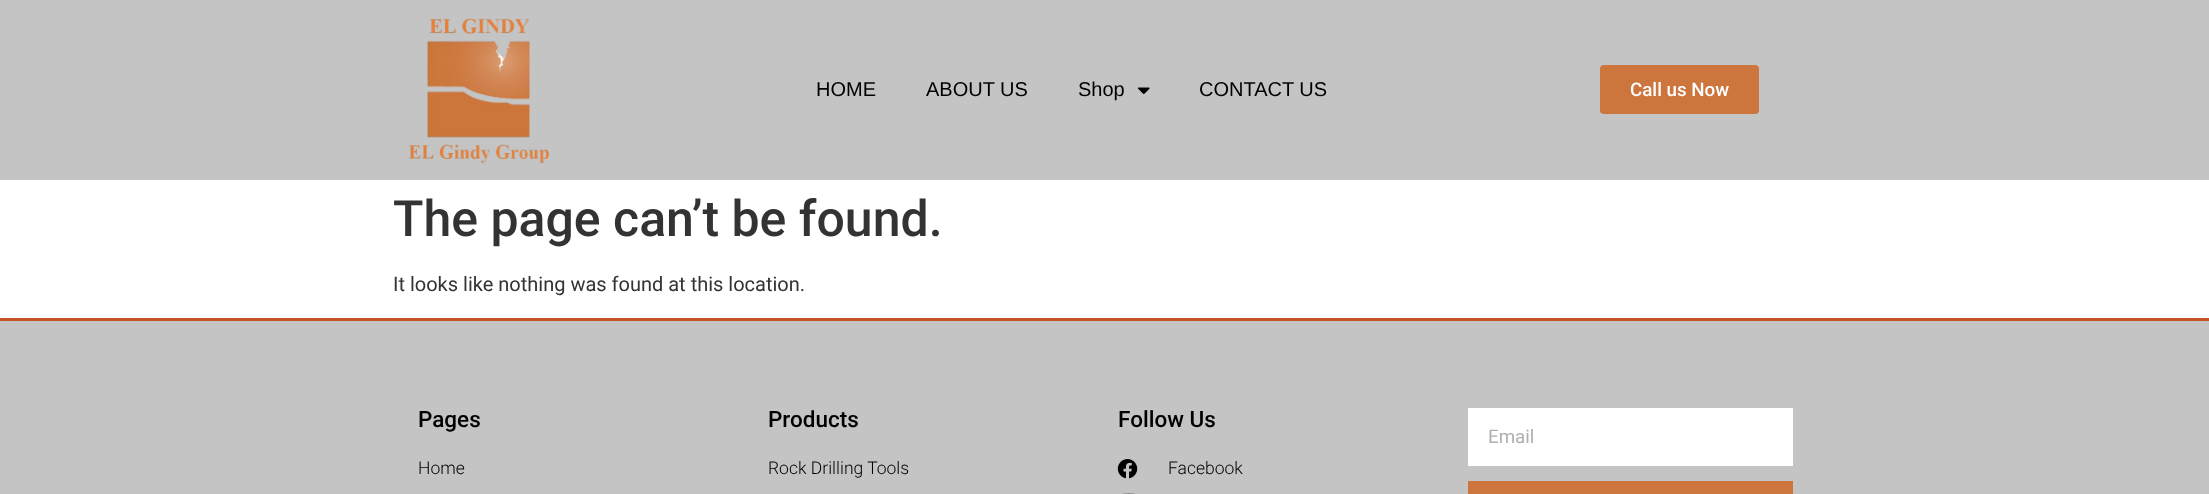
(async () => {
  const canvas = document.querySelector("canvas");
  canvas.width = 2209;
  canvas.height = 494;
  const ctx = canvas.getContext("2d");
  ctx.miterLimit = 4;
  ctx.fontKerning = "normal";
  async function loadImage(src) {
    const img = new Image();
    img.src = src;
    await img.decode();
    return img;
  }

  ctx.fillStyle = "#ffffff";
  ctx.fillRect(0, 0, 2209, 494);
  ctx.fillStyle = "#c4c4c4";
  ctx.fillRect(0, 0, 2209, 180);
  ctx.drawImage(await loadImage("img/1.png"), 408, 18, 142, 146);
  ctx.drawImage(await loadImage("img/2.png"), 1138, 87, 12, 8);
  ctx.fillStyle = "#cc753d";
  ctx.beginPath();
  ctx.roundRect(1600, 65, 159, 49, 4);
  ctx.fill();
  ctx.fillStyle = "#c4c4c4";
  ctx.fillRect(0, 321, 2209, 173);
  ctx.fillStyle = "#c75227";
  ctx.fillRect(0, 318, 2209, 3);
  ctx.drawImage(await loadImage("img/3.png"), 1117, 459, 21, 20);
  ctx.drawImage(await loadImage("img/4.png"), 1122, 493, 14, 1);
  ctx.fillStyle = "#ffffff";
  ctx.fillRect(1468, 408, 325, 58);
  ctx.fillStyle = "#cc753d";
  ctx.fillRect(1468, 481, 325, 13);
  ctx.font = "20px Liberation Sans";
  ctx.fillStyle = "#000000";
  for (const [text, x, y] of [
    ["HOME", 816, 96],
    ["ABOUT US", 926, 96],
    ["Shop", 1078, 96],
    ["CONTACT US", 1199, 96],
  ]) {
    ctx.fillText(text, x, y);
  }
  ctx.font = "500 18.75px Roboto";
  ctx.fillStyle = "#ffffff";
  ctx.fillText("Call us Now", 1630, 96);
  ctx.font = "500 50px Roboto";
  ctx.fillStyle = "#333333";
  ctx.fillText("The page can’t be found.", 393, 236);
  ctx.font = "20px Roboto";
  ctx.fillText("It looks like nothing was found at this location.", 393, 291);
  ctx.font = "500 22.5px Roboto";
  ctx.fillStyle = "#000000";
  ctx.fillText("Pages", 418, 427);
  ctx.font = "300 17.5px Roboto";
  ctx.fillText("Home", 418, 474);
  ctx.font = "500 22.5px Roboto";
  ctx.fillText("Products", 768, 427);
  ctx.font = "300 17.5px Roboto";
  ctx.fillText("Rock Drilling Tools", 768, 474);
  ctx.font = "500 22.5px Roboto";
  ctx.fillText("Follow Us", 1118, 427);
  ctx.font = "300 17.5px Roboto";
  ctx.fillText("Facebook", 1168, 474);
  ctx.font = "18.75px Roboto";
  ctx.fillStyle = "#afafaf";
  ctx.fillText("Email", 1488, 443);
})();
